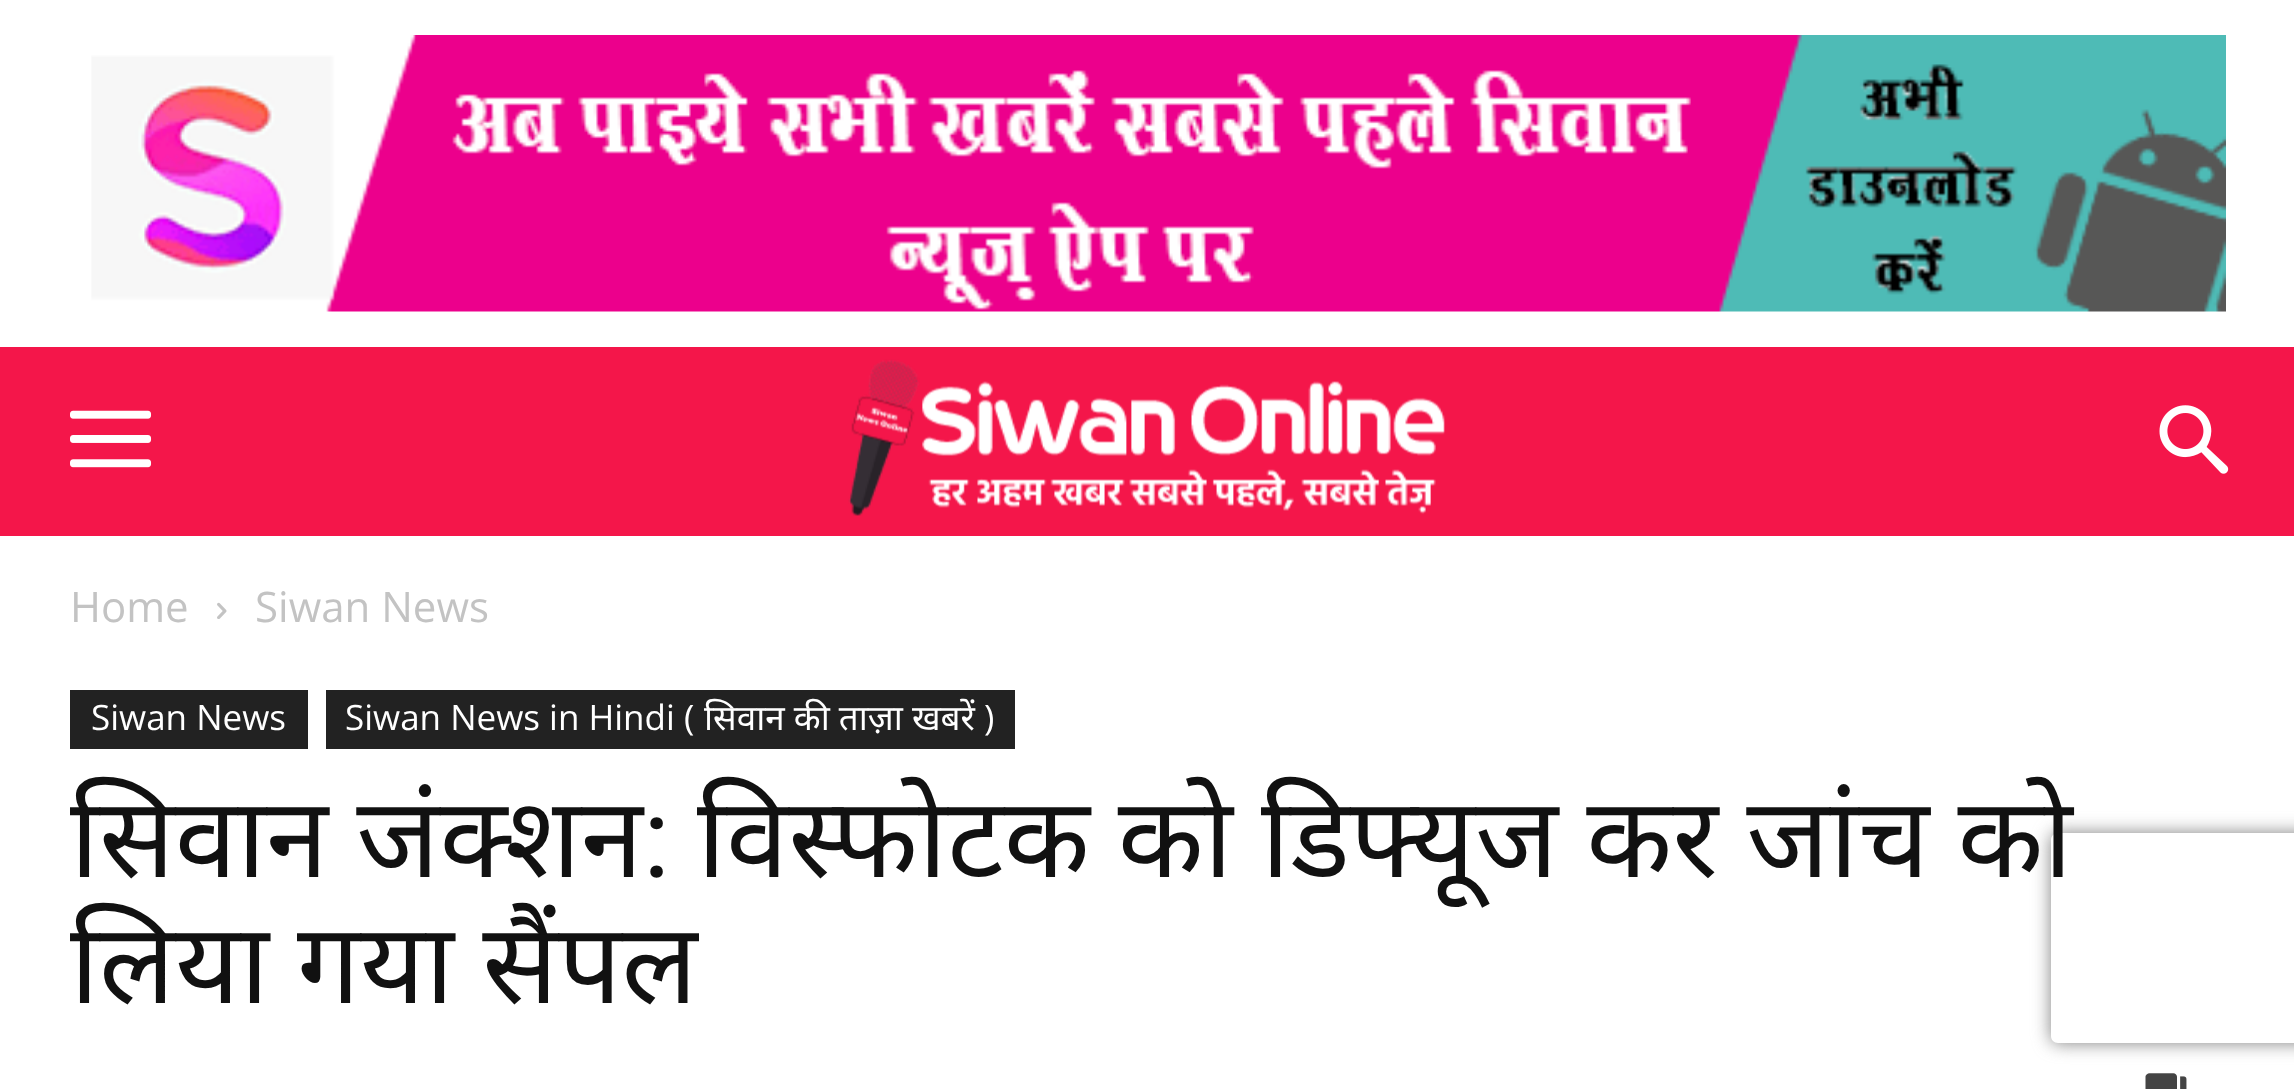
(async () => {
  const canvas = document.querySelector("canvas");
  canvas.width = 2294;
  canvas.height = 1089;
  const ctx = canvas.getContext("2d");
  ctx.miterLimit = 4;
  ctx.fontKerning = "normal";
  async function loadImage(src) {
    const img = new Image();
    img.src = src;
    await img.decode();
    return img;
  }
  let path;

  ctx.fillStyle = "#ffffff";
  ctx.fillRect(0, 0, 2294, 1089);
  ctx.drawImage(await loadImage("img/1.png"), 91, 35, 2135, 277);
  ctx.fillStyle = "#f4164a";
  ctx.fillRect(0, 347, 2294, 189);
  ctx.drawImage(await loadImage("img/2.png"), 70, 410, 82, 58);
  ctx.drawImage(await loadImage("img/3.png"), 848, 359, 597, 157);
  ctx.drawImage(await loadImage("img/4.png"), 2159, 405, 70, 69);
  ctx.drawImage(await loadImage("img/5.png"), 217, 602, 10, 17);
  ctx.fillStyle = "#222222";
  ctx.fillRect(70, 690, 238, 59);
  ctx.fillRect(326, 690, 689, 59);
  ctx.drawImage(await loadImage("img/6.png"), 2145, 1073, 42, 16);
  ctx.save();
  path = new Path2D("M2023 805H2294V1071H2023ZM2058 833H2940C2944 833 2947 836 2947 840V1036C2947 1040 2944 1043 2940 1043H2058C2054 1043 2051 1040 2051 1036V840C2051 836 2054 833 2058 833Z");
  ctx.clip(path, "evenodd");
  ctx.fillStyle = "#808080";
  ctx.filter = "blur(9px)";
  ctx.beginPath();
  ctx.roundRect(2051, 833, 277, 210, 7);
  ctx.fill();
  ctx.filter = "none";
  ctx.restore();
  ctx.font = "42px Open Sans";
  ctx.fillStyle = "#c3c3c3";
  ctx.fillText("Home", 70, 622);
  ctx.fillText("Siwan News", 255, 622);
  ctx.font = "35px Open Sans";
  ctx.fillStyle = "#ffffff";
  ctx.fillText("Siwan News", 91, 730);
  ctx.fillText("Siwan News in Hindi (", 345, 730);
  ctx.font = "35px Noto Sans";
  ctx.fillText("सिवान की ताज़ा खबरें", 704, 730);
  ctx.font = "35px Open Sans";
  ctx.fillText(")", 984, 730);
  ctx.wordSpacing = "-1px";
  ctx.font = "112px Noto Sans";
  ctx.fillStyle = "#111111";
  ctx.fillText("सिवान जंक्शन", 70, 877);
  ctx.wordSpacing = "0px";
  ctx.font = "112px Roboto";
  ctx.fillText(":", 643, 877);
  ctx.wordSpacing = "-1px";
  ctx.font = "112px Noto Sans";
  ctx.fillText("विस्फोटक को डिफ्यूज कर जांच को", 697, 877);
  ctx.fillText("लिया गया सैंपल", 70, 1003);
})();
